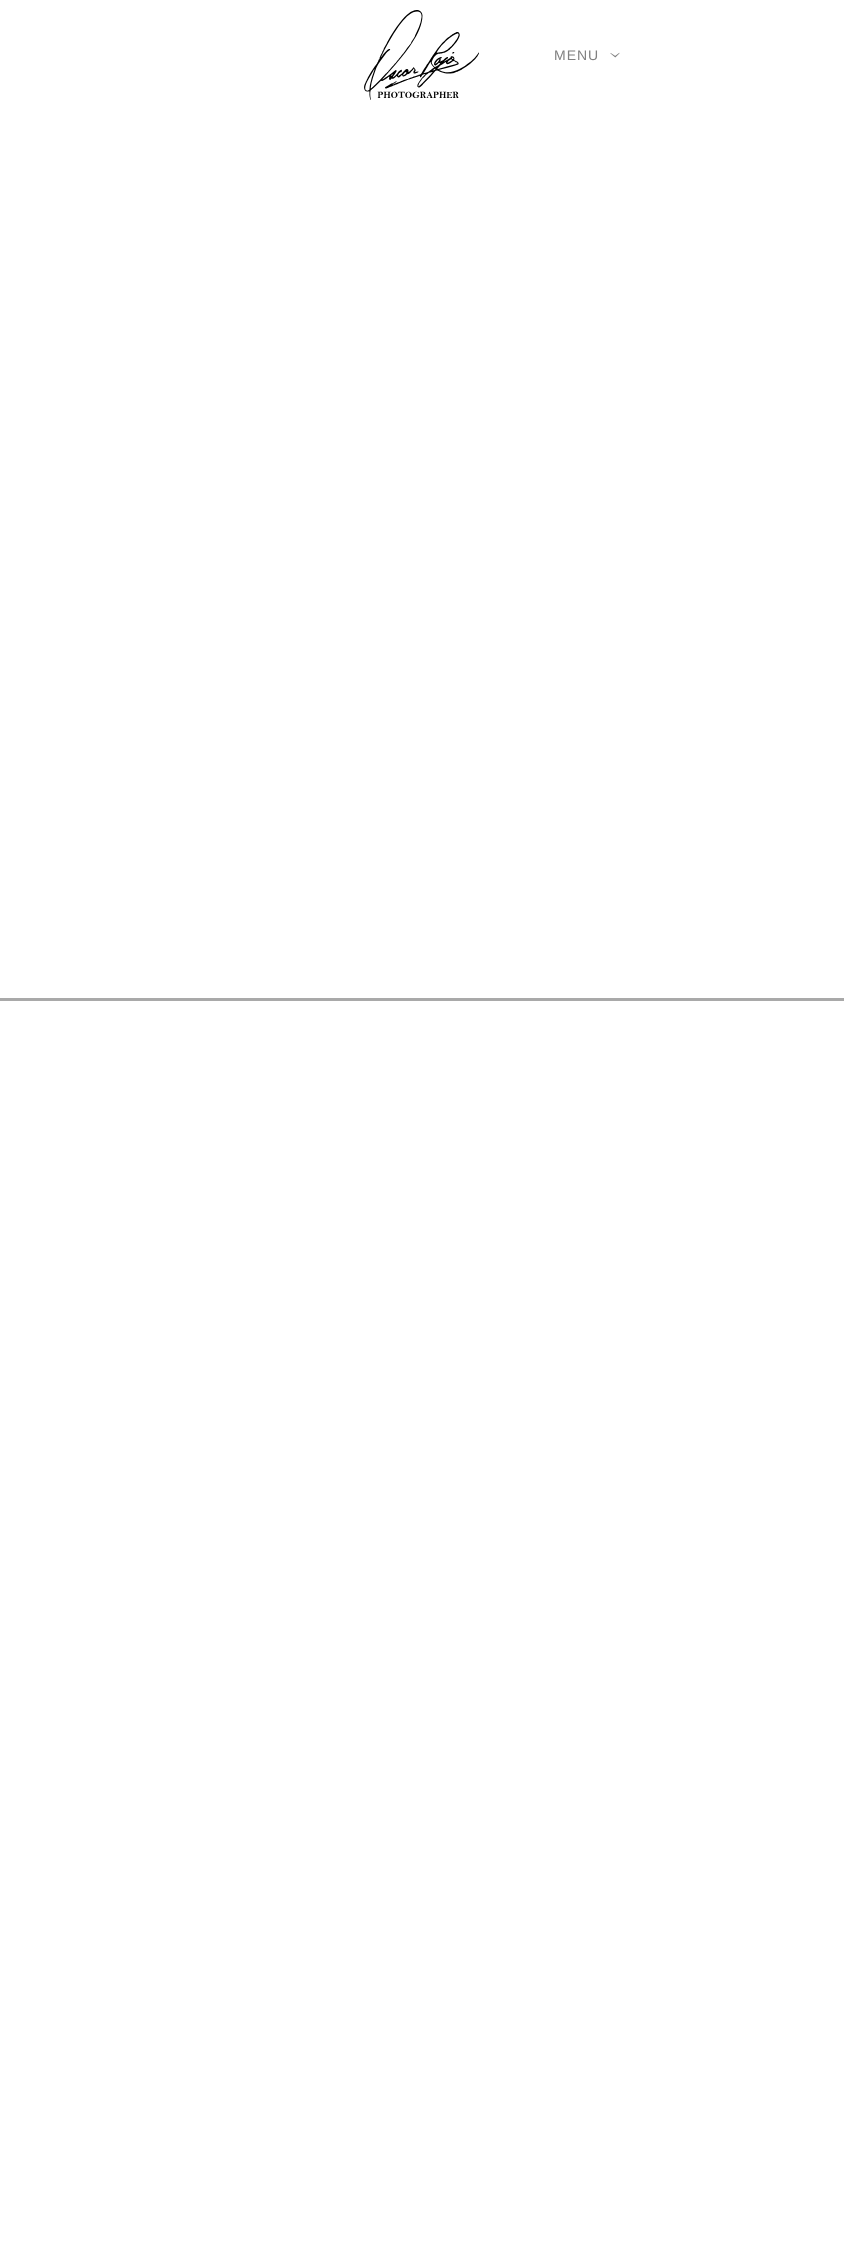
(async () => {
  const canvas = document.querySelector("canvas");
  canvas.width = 844;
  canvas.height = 2245;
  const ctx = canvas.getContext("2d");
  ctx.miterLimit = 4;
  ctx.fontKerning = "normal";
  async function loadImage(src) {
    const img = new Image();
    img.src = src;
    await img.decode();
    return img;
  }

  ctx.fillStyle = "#ffffff";
  ctx.fillRect(0, 0, 844, 2245);
  ctx.drawImage(await loadImage("img/1.png"), 364, 10, 115, 90);
  ctx.drawImage(await loadImage("img/2.png"), 610, 52, 10, 6);
  ctx.fillStyle = "#a9a9a9";
  ctx.fillRect(0, 998, 844, 3);
  ctx.letterSpacing = "1px";
  ctx.font = "14px Liberation Sans";
  ctx.fillStyle = "#808080";
  ctx.fillText("MENU", 554, 60);
})();
